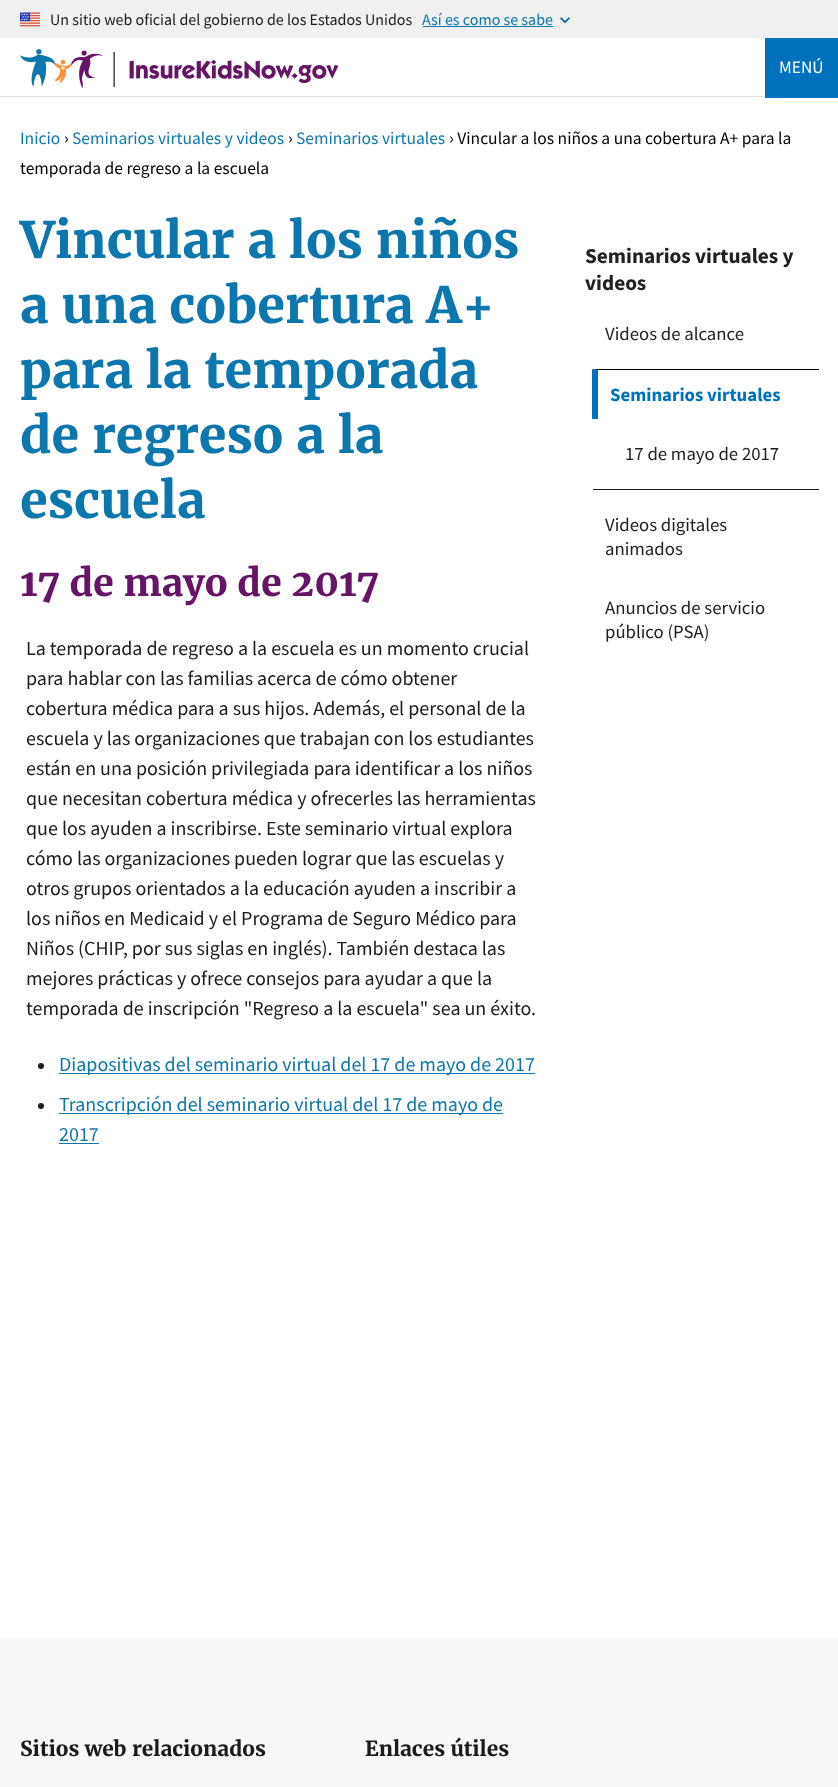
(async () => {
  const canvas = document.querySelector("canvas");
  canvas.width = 838;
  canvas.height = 1787;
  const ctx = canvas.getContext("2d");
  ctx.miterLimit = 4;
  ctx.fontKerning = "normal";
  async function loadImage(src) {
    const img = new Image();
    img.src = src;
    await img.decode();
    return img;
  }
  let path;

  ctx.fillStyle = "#ffffff";
  ctx.fillRect(0, 0, 838, 1787);
  ctx.fillStyle = "#f0f0f0";
  ctx.fillRect(0, 0, 838, 38);
  ctx.drawImage(await loadImage("img/1.png"), 20, 12, 20, 15);
  ctx.fillStyle = "#0d76ad";
  ctx.fillRect(423, 26, 130, 1);
  ctx.drawImage(await loadImage("img/2.png"), 560, 17, 10, 7);
  ctx.fillStyle = "#dfe1e2";
  ctx.fillRect(0, 96, 765, 1);
  ctx.drawImage(await loadImage("img/3.png"), 20, 49, 319, 40);
  ctx.fillStyle = "#0071bc";
  ctx.fillRect(765, 38, 73, 60);
  ctx.fillStyle = "#1b1b1b";
  ctx.beginPath();
  ctx.arc(41, 1066, 3, 0, Math.PI * 2);
  ctx.fill();
  ctx.fillStyle = "#0d76ad";
  ctx.fillRect(59, 1073, 476, 1);
  ctx.fillStyle = "#1b1b1b";
  ctx.beginPath();
  ctx.arc(41, 1106, 3, 0, Math.PI * 2);
  ctx.fill();
  ctx.fillStyle = "#0d76ad";
  ctx.fillRect(59, 1113, 444, 1);
  ctx.fillRect(59, 1143, 40, 1);
  ctx.fillStyle = "#000000";
  path = new Path2D("M592 369H819V370H598Z");
  ctx.fill(path);
  ctx.fillStyle = "#0071bc";
  path = new Path2D("M592 419V369L598 370V419Z");
  ctx.fill(path);
  ctx.fillStyle = "#1b1b1b";
  ctx.fillRect(593, 489, 226, 1);
  ctx.fillStyle = "#f7f7f7";
  ctx.fillRect(0, 1638, 838, 149);
  ctx.font = "16px Source Sans Pro";
  ctx.fillStyle = "#1b1b1b";
  ctx.fillText("Un sitio web oficial del gobierno de los Estados Unidos", 50, 25);
  ctx.fillStyle = "#0d76ad";
  ctx.fillText("Así es como se sabe", 422, 25);
  ctx.font = "17.5px Source Sans Pro";
  ctx.fillStyle = "#ffffff";
  ctx.fillText("MENÚ", 779, 73);
  ctx.fillStyle = "#0d76ad";
  ctx.fillText("Inicio", 20, 144);
  ctx.fillStyle = "#000000";
  ctx.fillText("›", 64, 144);
  ctx.fillStyle = "#0d76ad";
  ctx.fillText("Seminarios virtuales y videos", 72, 144);
  ctx.fillStyle = "#000000";
  ctx.fillText("›", 288, 144);
  ctx.fillStyle = "#0d76ad";
  ctx.fillText("Seminarios virtuales", 296, 144);
  ctx.fillStyle = "#000000";
  ctx.fillText("› Vincular a los niños a una cobertura A+ para la", 449, 144);
  ctx.fillText("temporada de regreso a la escuela", 20, 174);
  ctx.font = "bold 50px Merriweather";
  ctx.fillStyle = "#0d76ad";
  for (const [text, x, y] of [
    ["Vincular a los niños", 20, 258],
    ["a una cobertura A+", 20, 323],
    ["para la temporada", 20, 388],
    ["de regreso a la", 20, 453],
    ["escuela", 20, 518],
  ]) {
    ctx.fillText(text, x, y);
  }
  ctx.font = "bold 37.5px Merriweather";
  ctx.fillStyle = "#661466";
  ctx.fillText("17 de mayo de 2017", 20, 596);
  ctx.font = "20px Source Sans Pro";
  ctx.fillStyle = "#1b1b1b";
  for (const [text, x, y] of [
    ["La temporada de regreso a la escuela es un momento crucial", 26, 655],
    ["para hablar con las familias acerca de cómo obtener", 26, 685],
    ["cobertura médica para a sus hijos. Además, el personal de la", 26, 715],
    ["escuela y las organizaciones que trabajan con los estudiantes", 26, 745],
    ["están en una posición privilegiada para identificar a los niños", 26, 775],
    ["que necesitan cobertura médica y ofrecerles las herramientas", 26, 805],
    ["que los ayuden a inscribirse. Este seminario virtual explora", 26, 835],
    ["cómo las organizaciones pueden lograr que las escuelas y", 26, 865],
    ["otros grupos orientados a la educación ayuden a inscribir a", 26, 895],
    ["los niños en Medicaid y el Programa de Seguro Médico para", 26, 925],
    ["Niños (CHIP, por sus siglas en inglés). También destaca las", 26, 955],
    ["mejores prácticas y ofrece consejos para ayudar a que la", 26, 985],
    ["temporada de inscripción \"Regreso a la escuela\" sea un éxito.", 26, 1015],
  ]) {
    ctx.fillText(text, x, y);
  }
  ctx.fillStyle = "#0d76ad";
  for (const [text, x, y] of [
    ["Diapositivas del seminario virtual del 17 de mayo de 2017", 59, 1071],
    ["Transcripción del seminario virtual del 17 de mayo de", 59, 1111],
    ["2017", 59, 1141],
  ]) {
    ctx.fillText(text, x, y);
  }
  ctx.font = "bold 21.25px Source Sans Pro";
  ctx.fillStyle = "#212121";
  ctx.fillText("Seminarios virtuales y", 585, 263);
  ctx.fillText("videos", 585, 290);
  ctx.font = "18.75px Source Sans Pro";
  ctx.fillText("Videos de alcance", 605, 340);
  ctx.font = "bold 18.75px Source Sans Pro";
  ctx.fillStyle = "#0071bc";
  ctx.fillText("Seminarios virtuales", 610, 401);
  ctx.font = "18.75px Source Sans Pro";
  ctx.fillStyle = "#212121";
  for (const [text, x, y] of [
    ["17 de mayo de 2017", 625, 460],
    ["Videos digitales", 605, 531],
    ["animados", 605, 555],
    ["Anuncios de servicio", 605, 614],
    ["público (PSA)", 605, 638],
  ]) {
    ctx.fillText(text, x, y);
  }
  ctx.font = "bold 20.75px Merriweather";
  ctx.fillStyle = "#1b1b1b";
  ctx.fillText("Sitios web relacionados", 20, 1756);
  ctx.fillText("Enlaces útiles", 365, 1756);
})();
